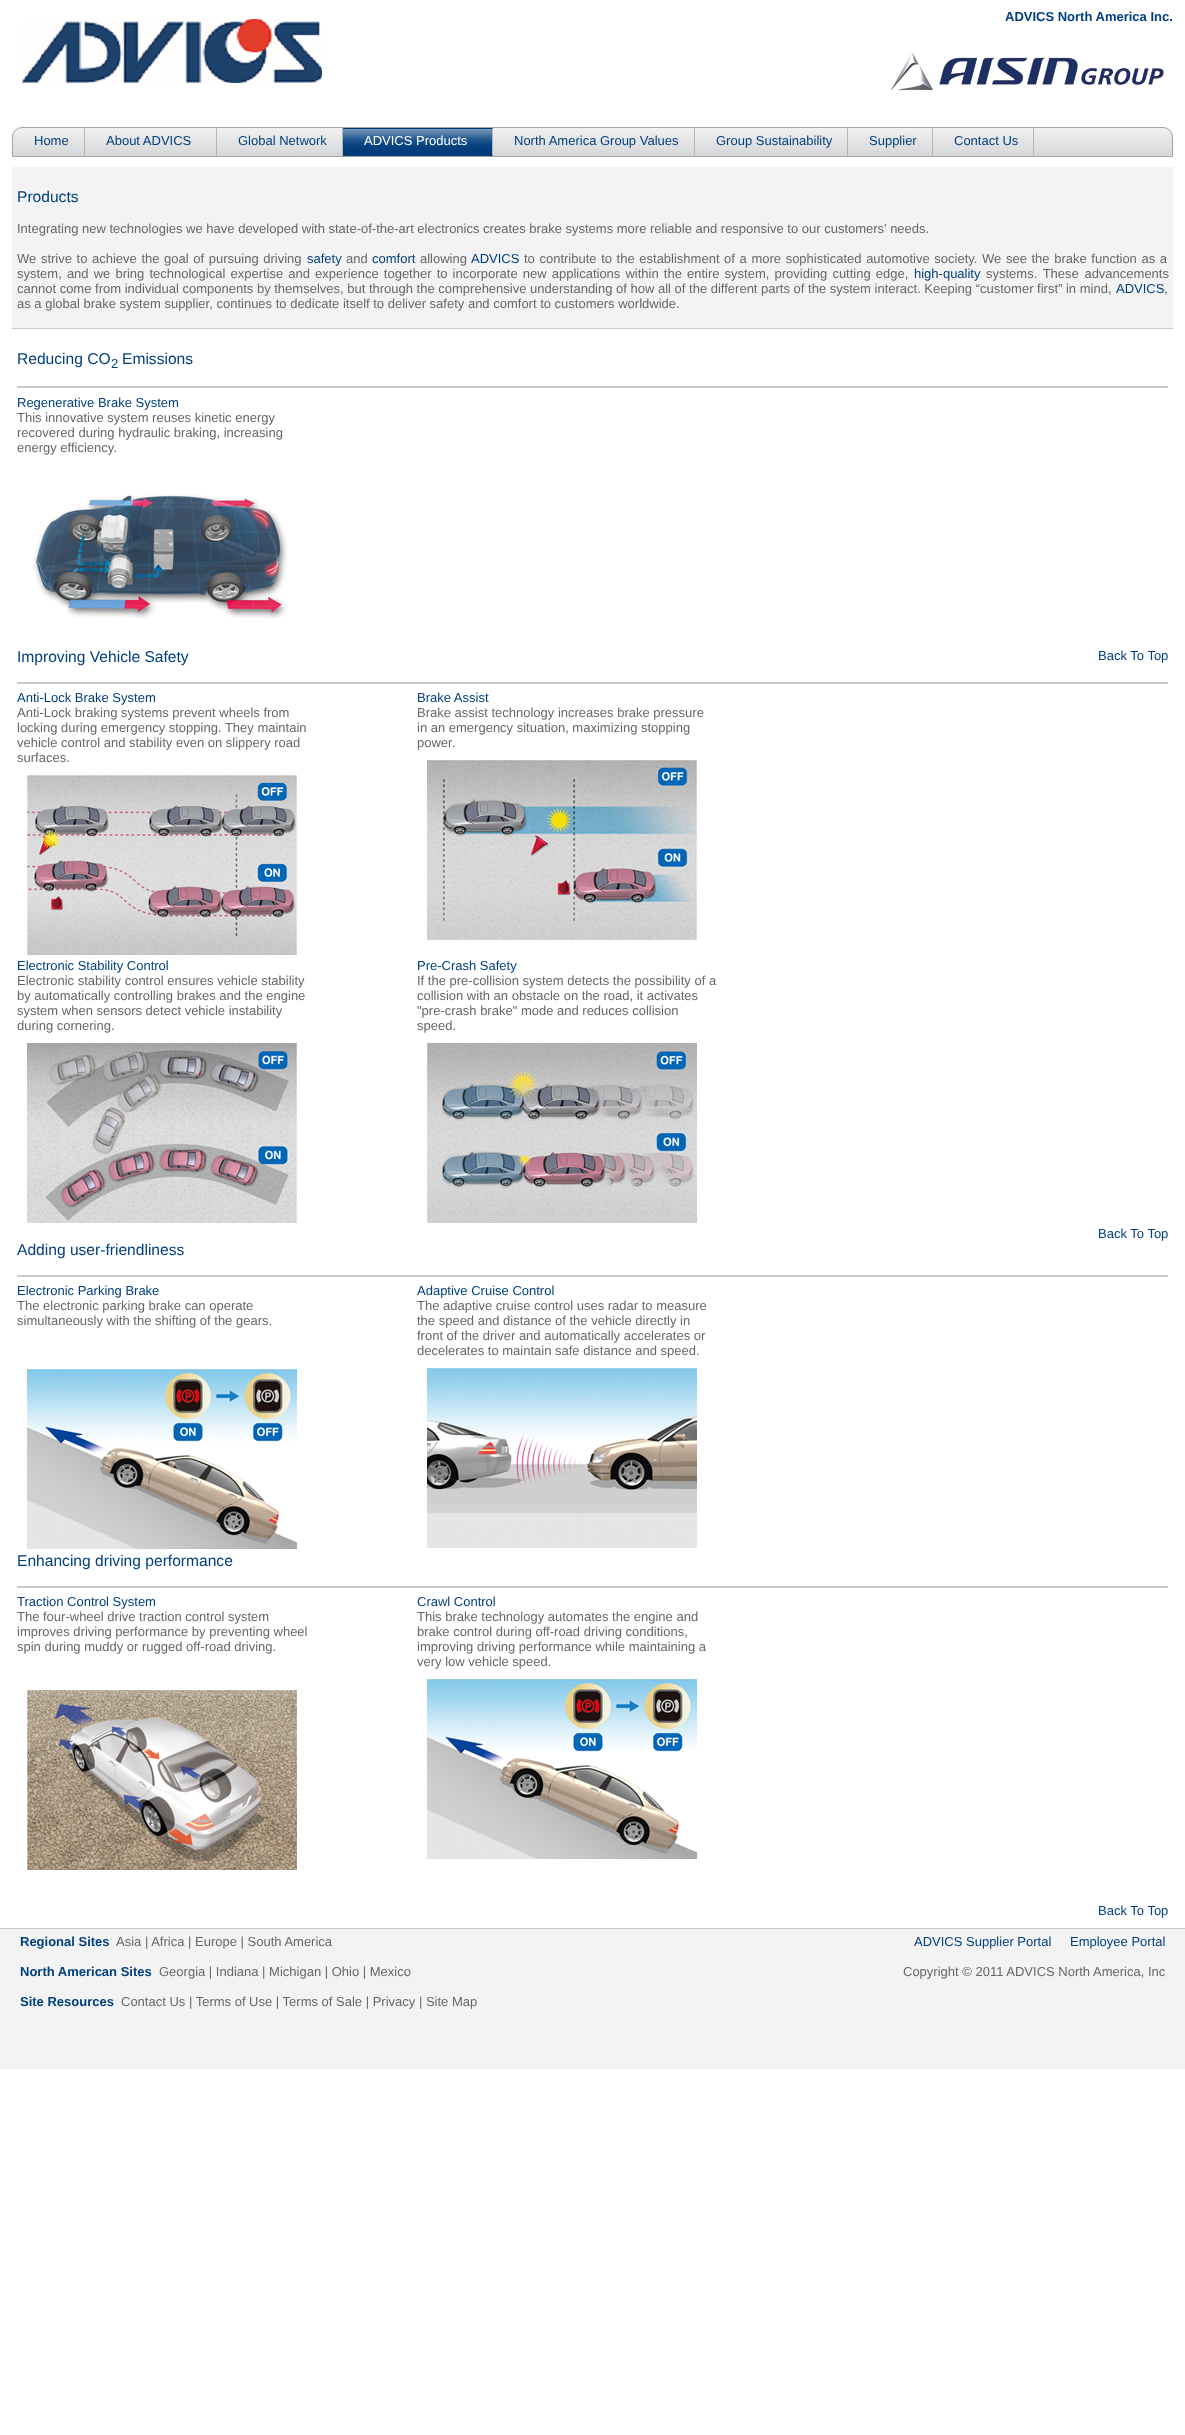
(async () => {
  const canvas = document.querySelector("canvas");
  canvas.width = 1185;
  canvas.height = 2435;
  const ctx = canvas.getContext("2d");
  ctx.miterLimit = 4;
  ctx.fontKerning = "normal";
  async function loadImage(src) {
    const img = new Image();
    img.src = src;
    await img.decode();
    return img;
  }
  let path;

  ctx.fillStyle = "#ffffff";
  ctx.fillRect(0, 0, 1185, 2435);
  ctx.drawImage(await loadImage("img/1.png"), 891, 52, 273, 39);
  ctx.drawImage(await loadImage("img/2.png"), 22, 19, 300, 64);
  ctx.drawImage(await loadImage("img/3.png"), 12, 128, 1161, 28);
  ctx.beginPath();
  ctx.roundRect(12.5, 127.5, 1160, 29, [9.5, 9.5, 0, 0]);
  ctx.strokeStyle = "#a3a4a8";
  ctx.stroke();
  ctx.fillStyle = "#b3b4b7";
  path = new Path2D("M85 128V156L84 155V129Z");
  ctx.fill(path);
  path = new Path2D("M217 128V156L216 155V129Z");
  ctx.fill(path);
  path = new Path2D("M343 128V156L342 155V129Z");
  ctx.fill(path);
  ctx.drawImage(await loadImage("img/4.png"), 343, 128, 150, 28);
  path = new Path2D("M493 128V156L492 155V129Z");
  ctx.fill(path);
  path = new Path2D("M695 128V156L694 155V129Z");
  ctx.fill(path);
  path = new Path2D("M848 128V156L847 155V129Z");
  ctx.fill(path);
  path = new Path2D("M933 128V156L932 155V129Z");
  ctx.fill(path);
  path = new Path2D("M1034 128V156L1033 155V129Z");
  ctx.fill(path);
  for (const [x, y, w, h, color] of [
    [12, 167, 1161, 161, "#f3f3f4"],
    [12, 328, 1161, 1, "#c8c9cb"],
    [17, 386, 1151, 2, "#c8c9cb"],
  ]) {
    ctx.fillStyle = color;
    ctx.fillRect(x, y, w, h);
  }
  ctx.drawImage(await loadImage("img/5.png"), 33, 494, 255, 125);
  ctx.fillRect(17, 682, 1151, 2);
  ctx.drawImage(await loadImage("img/6.png"), 27, 775, 270, 180);
  ctx.drawImage(await loadImage("img/7.png"), 427, 760, 270, 180);
  ctx.drawImage(await loadImage("img/8.png"), 27, 1043, 270, 180);
  ctx.drawImage(await loadImage("img/9.png"), 427, 1043, 270, 180);
  ctx.fillRect(17, 1275, 1151, 2);
  ctx.drawImage(await loadImage("img/10.png"), 27, 1369, 270, 180);
  ctx.drawImage(await loadImage("img/11.png"), 427, 1368, 270, 180);
  ctx.fillRect(17, 1586, 1151, 2);
  ctx.drawImage(await loadImage("img/12.png"), 27, 1690, 270, 180);
  ctx.drawImage(await loadImage("img/10.png"), 427, 1679, 270, 180);
  ctx.fillStyle = "#f3f3f4";
  ctx.fillRect(0, 1929, 1185, 140);
  ctx.fillStyle = "#c8c9cb";
  ctx.fillRect(0, 1928, 1185, 1);
  ctx.font = "bold 13px Liberation Sans";
  ctx.fillStyle = "#003f7e";
  ctx.fillText("ADVICS North America Inc.", 1005, 21);
  ctx.font = "13px Liberation Sans";
  for (const [text, x, y] of [
    ["Home", 34, 145],
    ["About ADVICS", 106, 145],
    ["Global Network", 238, 145],
  ]) {
    ctx.fillText(text, x, y);
  }
  ctx.fillStyle = "#ffffff";
  ctx.fillText("ADVICS Products", 364, 145);
  ctx.fillStyle = "#003f7e";
  for (const [text, x, y] of [
    ["North America Group Values", 514, 145],
    ["Group Sustainability", 716, 145],
    ["Supplier", 869, 145],
    ["Contact Us", 954, 145],
  ]) {
    ctx.fillText(text, x, y);
  }
  ctx.font = "15.6px Liberation Sans";
  ctx.fillText("Products", 17, 202);
  ctx.font = "13px Liberation Sans";
  ctx.fillStyle = "#676767";
  ctx.fillText("Integrating new technologies we have developed with state-of-the-art electronics creates brake systems more reliable and responsive to our customers’ needs.", 17, 233);
  ctx.wordSpacing = "1px";
  ctx.fillText("We strive to achieve the goal of pursuing driving", 17, 263);
  ctx.wordSpacing = "0px";
  ctx.fillStyle = "#003f7e";
  ctx.fillText("safety", 307, 263);
  ctx.fillStyle = "#676767";
  ctx.fillText("and", 346, 263);
  ctx.fillStyle = "#003f7e";
  ctx.fillText("comfort", 372, 263);
  ctx.fillStyle = "#676767";
  ctx.fillText("allowing", 420, 263);
  ctx.fillStyle = "#003f7e";
  ctx.fillText("ADVICS", 471, 263);
  ctx.wordSpacing = "1px";
  ctx.fillStyle = "#676767";
  ctx.fillText("to contribute to the establishment of a more sophisticated automotive society. We see the brake function as a", 524, 263);
  ctx.wordSpacing = "1.5px";
  ctx.fillText("system, and we bring technological expertise and experience together to incorporate new applications within the entire system, providing cutting edge,", 17, 278);
  ctx.wordSpacing = "0px";
  ctx.fillStyle = "#003f7e";
  ctx.fillText("high-quality", 914, 278);
  ctx.wordSpacing = "2px";
  ctx.fillStyle = "#676767";
  ctx.fillText("systems. These advancements", 986, 278);
  ctx.wordSpacing = "0px";
  ctx.fillText("cannot come from individual components by themselves, but through the comprehensive understanding of how all of the different parts of the system interact. Keeping “customer first” in mind,", 17, 293);
  ctx.fillStyle = "#003f7e";
  ctx.fillText("ADVICS", 1116, 293);
  ctx.fillStyle = "#676767";
  ctx.fillText(",", 1164, 293);
  ctx.fillText("as a global brake system supplier, continues to dedicate itself to deliver safety and comfort to customers worldwide.", 17, 308);
  ctx.font = "15.6px Liberation Sans";
  ctx.fillStyle = "#003f7e";
  ctx.fillText("Reducing CO", 17, 364);
  ctx.font = "13px Liberation Sans";
  ctx.fillText("2", 111, 368);
  ctx.font = "15.6px Liberation Sans";
  ctx.fillText("Emissions", 122, 364);
  ctx.font = "13px Liberation Sans";
  ctx.fillText("Regenerative Brake System", 17, 407);
  ctx.fillStyle = "#676767";
  for (const [text, x, y] of [
    ["This innovative system reuses kinetic energy", 17, 422],
    ["recovered during hydraulic braking, increasing", 17, 437],
    ["energy efficiency.", 17, 452],
  ]) {
    ctx.fillText(text, x, y);
  }
  ctx.font = "15.6px Liberation Sans";
  ctx.fillStyle = "#003f7e";
  ctx.fillText("Improving Vehicle Safety", 17, 662);
  ctx.font = "13px Liberation Sans";
  ctx.fillText("Back To Top", 1098, 660);
  ctx.fillText("Anti-Lock Brake System", 17, 702);
  ctx.fillStyle = "#676767";
  for (const [text, x, y] of [
    ["Anti-Lock braking systems prevent wheels from", 17, 717],
    ["locking during emergency stopping. They maintain", 17, 732],
    ["vehicle control and stability even on slippery road", 17, 747],
    ["surfaces.", 17, 762],
  ]) {
    ctx.fillText(text, x, y);
  }
  ctx.fillStyle = "#003f7e";
  ctx.fillText("Brake Assist", 417, 702);
  ctx.fillStyle = "#676767";
  for (const [text, x, y] of [
    ["Brake assist technology increases brake pressure", 417, 717],
    ["in an emergency situation, maximizing stopping", 417, 732],
    ["power.", 417, 747],
  ]) {
    ctx.fillText(text, x, y);
  }
  ctx.fillStyle = "#003f7e";
  ctx.fillText("Electronic Stability Control", 17, 970);
  ctx.fillStyle = "#676767";
  for (const [text, x, y] of [
    ["Electronic stability control ensures vehicle stability", 17, 985],
    ["by automatically controlling brakes and the engine", 17, 1000],
    ["system when sensors detect vehicle instability", 17, 1015],
    ["during cornering.", 17, 1030],
  ]) {
    ctx.fillText(text, x, y);
  }
  ctx.fillStyle = "#003f7e";
  ctx.fillText("Pre-Crash Safety", 417, 970);
  ctx.fillStyle = "#676767";
  for (const [text, x, y] of [
    ["If the pre-collision system detects the possibility of a", 417, 985],
    ["collision with an obstacle on the road, it activates", 417, 1000],
    ["\"pre-crash brake\" mode and reduces collision", 417, 1015],
    ["speed.", 417, 1030],
  ]) {
    ctx.fillText(text, x, y);
  }
  ctx.fillStyle = "#003f7e";
  ctx.fillText("Back To Top", 1098, 1238);
  ctx.font = "15.6px Liberation Sans";
  ctx.fillText("Adding user-friendliness", 17, 1255);
  ctx.font = "13px Liberation Sans";
  ctx.fillText("Electronic Parking Brake", 17, 1295);
  ctx.fillStyle = "#676767";
  ctx.fillText("The electronic parking brake can operate", 17, 1310);
  ctx.fillText("simultaneously with the shifting of the gears.", 17, 1325);
  ctx.fillStyle = "#003f7e";
  ctx.fillText("Adaptive Cruise Control", 417, 1295);
  ctx.fillStyle = "#676767";
  for (const [text, x, y] of [
    ["The adaptive cruise control uses radar to measure", 417, 1310],
    ["the speed and distance of the vehicle directly in", 417, 1325],
    ["front of the driver and automatically accelerates or", 417, 1340],
    ["decelerates to maintain safe distance and speed.", 417, 1355],
  ]) {
    ctx.fillText(text, x, y);
  }
  ctx.font = "15.6px Liberation Sans";
  ctx.fillStyle = "#003f7e";
  ctx.fillText("Enhancing driving performance", 17, 1566);
  ctx.font = "13px Liberation Sans";
  ctx.fillText("Traction Control System", 17, 1606);
  ctx.fillStyle = "#676767";
  for (const [text, x, y] of [
    ["The four-wheel drive traction control system", 17, 1621],
    ["improves driving performance by preventing wheel", 17, 1636],
    ["spin during muddy or rugged off-road driving.", 17, 1651],
  ]) {
    ctx.fillText(text, x, y);
  }
  ctx.fillStyle = "#003f7e";
  ctx.fillText("Crawl Control", 417, 1606);
  ctx.fillStyle = "#676767";
  for (const [text, x, y] of [
    ["This brake technology automates the engine and", 417, 1621],
    ["brake control during off-road driving conditions,", 417, 1636],
    ["improving driving performance while maintaining a", 417, 1651],
    ["very low vehicle speed.", 417, 1666],
  ]) {
    ctx.fillText(text, x, y);
  }
  ctx.fillStyle = "#003f7e";
  ctx.fillText("Back To Top", 1098, 1915);
  ctx.font = "bold 13px Liberation Sans";
  ctx.fillText("Regional Sites", 20, 1946);
  ctx.font = "13px Liberation Sans";
  ctx.fillStyle = "#676767";
  ctx.fillText("Asia | Africa | Europe | South America", 116, 1946);
  ctx.font = "bold 13px Liberation Sans";
  ctx.fillStyle = "#003f7e";
  ctx.fillText("North American Sites", 20, 1976);
  ctx.font = "13px Liberation Sans";
  ctx.fillStyle = "#676767";
  ctx.fillText("Georgia | Indiana | Michigan | Ohio | Mexico", 159, 1976);
  ctx.font = "bold 13px Liberation Sans";
  ctx.fillStyle = "#003f7e";
  ctx.fillText("Site Resources", 20, 2006);
  ctx.font = "13px Liberation Sans";
  ctx.fillStyle = "#676767";
  ctx.fillText("Contact Us | Terms of Use | Terms of Sale | Privacy | Site Map", 121, 2006);
  ctx.fillStyle = "#003f7e";
  ctx.fillText("ADVICS Supplier Portal", 914, 1946);
  ctx.fillText("Employee Portal", 1070, 1946);
  ctx.fillStyle = "#676767";
  ctx.fillText("Copyright © 2011 ADVICS North America, Inc", 903, 1976);
})();
